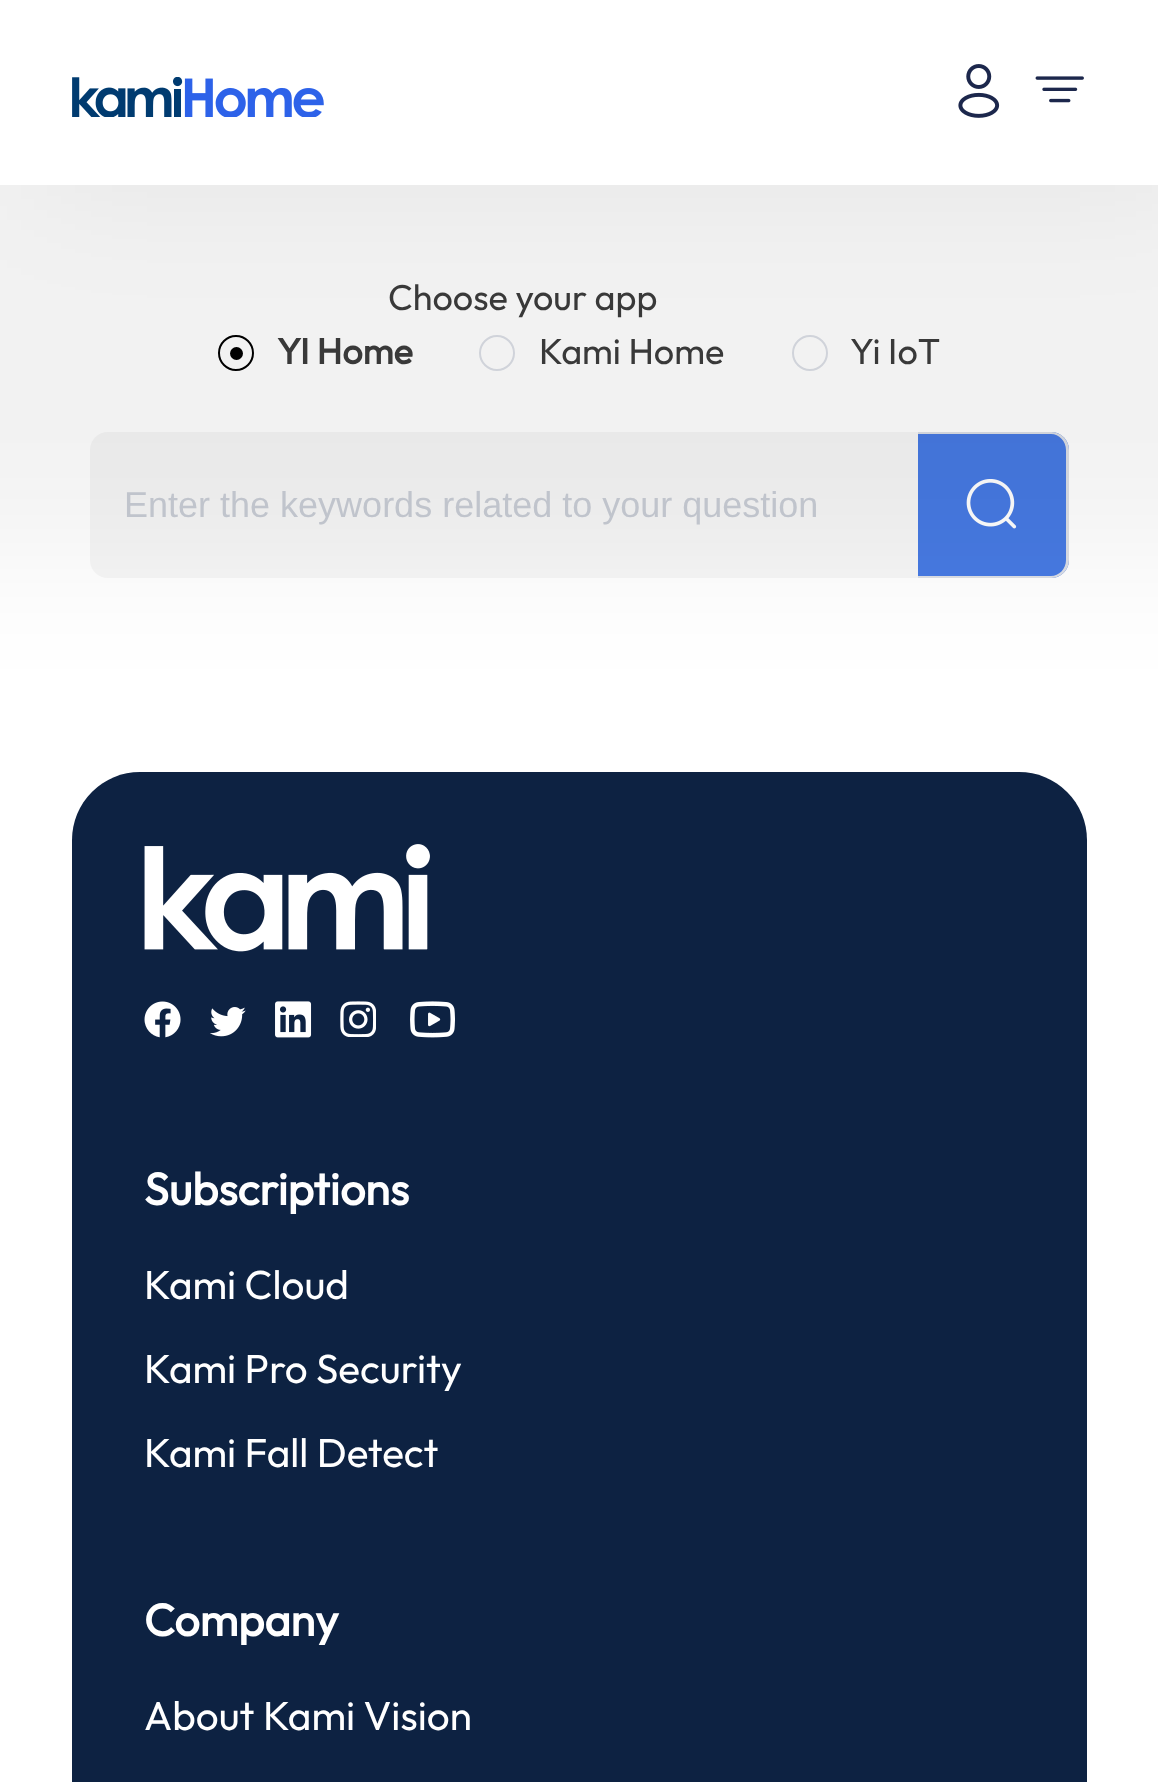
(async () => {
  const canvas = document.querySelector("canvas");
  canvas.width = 1158;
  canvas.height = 1782;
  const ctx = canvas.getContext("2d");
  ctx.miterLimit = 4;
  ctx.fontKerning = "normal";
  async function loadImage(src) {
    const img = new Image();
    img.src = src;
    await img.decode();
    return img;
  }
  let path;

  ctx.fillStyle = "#ffffff";
  ctx.fillRect(0, 0, 1158, 1782);
  ctx.beginPath();
  ctx.arc(236, 353, 17, 0, Math.PI * 2);
  ctx.strokeStyle = "#000000";
  ctx.lineWidth = 2;
  ctx.stroke();
  ctx.fillStyle = "#000000";
  ctx.beginPath();
  ctx.arc(236.5, 353.5, 6.5, 0, Math.PI * 2);
  ctx.fill();
  ctx.beginPath();
  ctx.arc(497, 353, 17, 0, Math.PI * 2);
  ctx.strokeStyle = "#dcdfe6";
  ctx.stroke();
  ctx.beginPath();
  ctx.arc(810, 353, 17, 0, Math.PI * 2);
  ctx.stroke();
  ctx.fillStyle = "#f6f6f6";
  ctx.beginPath();
  ctx.roundRect(90, 432, 828, 146, [18, 0, 0, 18]);
  ctx.fill();
  ctx.fillStyle = "#477ae3";
  ctx.beginPath();
  ctx.roundRect(918, 432, 151, 146, [0, 18, 18, 0]);
  ctx.fill();
  ctx.fillStyle = "#dcdfe6";
  path = new Path2D("M918 432H1051C1061 432 1069 440 1069 450V560C1069 570 1061 578 1051 578H918ZM918 434H1051C1059 434 1066 441 1066 450V560C1066 569 1059 576 1051 576H918Z");
  ctx.fill(path, "evenodd");
  ctx.drawImage(await loadImage("img/4.png"), 966, 479, 51, 50);
  ctx.fillStyle = "rgba(0, 0, 0, 0.05)";
  ctx.filter = "blur(67.5px)";
  ctx.beginPath();
  ctx.rect(-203, -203, 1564, 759);
  ctx.fill();
  ctx.filter = "none";
  ctx.filter = "blur(67.5px)";
  ctx.beginPath();
  ctx.rect(34, 0, 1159, 185);
  ctx.fill();
  ctx.filter = "none";
  ctx.fillStyle = "#ffffff";
  ctx.fillRect(0, 0, 1158, 185);
  ctx.drawImage(await loadImage("img/1.png"), 72, 77, 252, 40);
  ctx.drawImage(await loadImage("img/2.png"), 958, 64, 42, 54);
  ctx.drawImage(await loadImage("img/3.png"), 1035, 76, 49, 27);
  ctx.fillStyle = "#0d2242";
  ctx.beginPath();
  ctx.roundRect(72, 772, 1015, 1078, 68);
  ctx.fill();
  ctx.drawImage(await loadImage("img/5.png"), 144, 844, 286, 108);
  ctx.drawImage(await loadImage("img/6.png"), 144, 1001, 37, 37);
  ctx.drawImage(await loadImage("img/7.png"), 210, 1007, 36, 30);
  ctx.drawImage(await loadImage("img/8.png"), 275, 1001, 37, 37);
  ctx.drawImage(await loadImage("img/9.png"), 340, 1001, 36, 36);
  ctx.drawImage(await loadImage("img/10.png"), 410, 1001, 45, 37);
  ctx.font = "36px Outfit";
  ctx.fillStyle = "#393939";
  ctx.fillText("Choose your app", 388, 310);
  ctx.font = "bold 36px Outfit";
  ctx.fillText("YI Home", 277, 364);
  ctx.font = "36px Outfit";
  ctx.fillText("Kami Home", 539, 364);
  ctx.fillText("Yi IoT", 850, 364);
  ctx.font = "36px Liberation Sans";
  ctx.fillStyle = "#c0c4cc";
  ctx.fillText("Enter the keywords related to your question", 124, 517);
  ctx.font = "bold 45px Outfit";
  ctx.fillStyle = "#ffffff";
  ctx.fillText("Subscriptions", 144, 1205);
  ctx.font = "40.5px Outfit";
  for (const [text, x, y] of [
    ["Kami Cloud", 144, 1299],
    ["Kami Pro Security", 144, 1383],
    ["Kami Fall Detect", 144, 1467],
  ]) {
    ctx.fillText(text, x, y);
  }
  ctx.font = "bold 45px Outfit";
  ctx.fillText("Company", 144, 1636);
  ctx.font = "40.5px Outfit";
  ctx.fillText("About Kami Vision", 144, 1730);
})();
